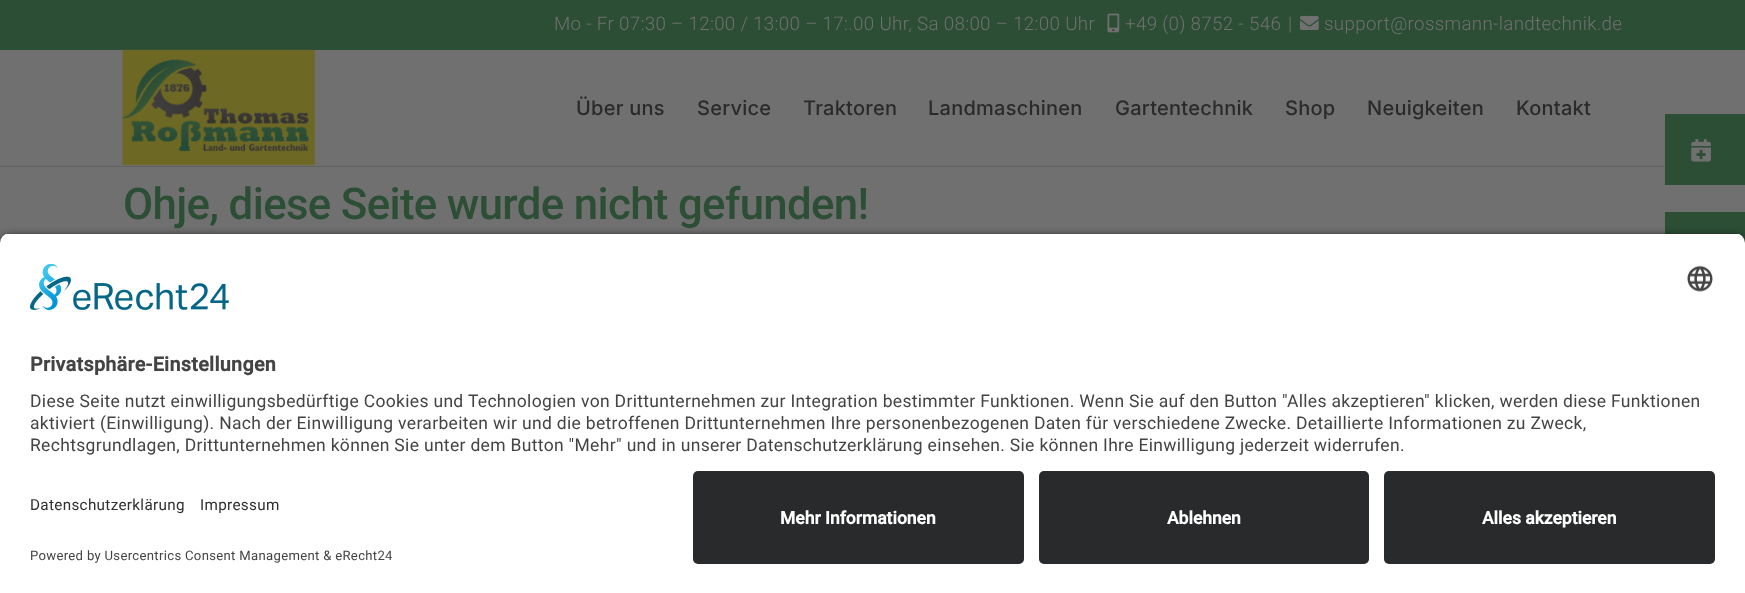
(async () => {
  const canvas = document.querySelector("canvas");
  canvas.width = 1745;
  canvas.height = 593;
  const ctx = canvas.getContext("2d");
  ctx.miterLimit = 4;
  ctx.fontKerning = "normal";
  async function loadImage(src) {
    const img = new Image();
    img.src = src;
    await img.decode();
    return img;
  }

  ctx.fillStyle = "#707070";
  ctx.fillRect(0, 0, 1745, 593);
  ctx.fillStyle = "#2c4e35";
  ctx.fillRect(0, 0, 1745, 50);
  ctx.drawImage(await loadImage("img/1.png"), 1107, 13, 13, 20);
  ctx.drawImage(await loadImage("img/2.png"), 1300, 15, 19, 15);
  ctx.fillStyle = "#616161";
  ctx.fillRect(0, 166, 1664, 1);
  ctx.drawImage(await loadImage("img/3.png"), 122, 49, 193, 117);
  ctx.fillStyle = "#2c4e35";
  ctx.fillRect(1665, 114, 80, 71);
  ctx.drawImage(await loadImage("img/4.png"), 1691, 139, 20, 23);
  ctx.fillRect(1665, 212, 80, 31);
  ctx.fillStyle = "rgba(0, 0, 0, 0.8)";
  ctx.filter = "blur(4.5px)";
  ctx.beginPath();
  ctx.roundRect(0, 236, 1745, 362, 10);
  ctx.fill();
  ctx.filter = "none";
  ctx.save();
  ctx.beginPath();
  ctx.roundRect(0, 233, 1745, 228, [10, 10, 0, 0]);
  ctx.clip();
  ctx.fillStyle = "#ffffff";
  ctx.fillRect(0, 234, 1745, 227);
  ctx.restore();
  ctx.drawImage(await loadImage("img/5.png"), 30, 264, 199, 46);
  ctx.drawImage(await loadImage("img/6.png"), 1687, 265, 26, 27);
  ctx.fillStyle = "#ffffff";
  ctx.fillRect(0, 461, 1745, 132);
  ctx.fillStyle = "#292a2b";
  ctx.beginPath();
  ctx.roundRect(693, 471, 331, 93, 5);
  ctx.fill();
  ctx.beginPath();
  ctx.roundRect(1039, 471, 330, 93, 5);
  ctx.fill();
  ctx.beginPath();
  ctx.roundRect(1384, 471, 331, 93, 5);
  ctx.fill();
  ctx.letterSpacing = "0.32px";
  ctx.font = "300 18.75px Roboto";
  ctx.fillStyle = "#707070";
  for (const [text, x, y] of [
    ["Mo - Fr 07:30 – 12:00 / 13:00 – 17:.00 Uhr, Sa 08:00 – 12:00 Uhr", 554, 30],
    ["+49 (0) 8752 - 546", 1125, 30],
    ["|", 1288, 30],
    ["support@rossmann-landtechnik.de", 1324, 30],
  ]) {
    ctx.fillText(text, x, y);
  }
  ctx.letterSpacing = "0.25px";
  ctx.font = "500 20px Inter";
  ctx.fillStyle = "#2a2a2b";
  for (const [text, x, y] of [
    ["Über uns", 576, 115],
    ["Service", 697, 115],
    ["Traktoren", 803, 115],
    ["Landmaschinen", 928, 115],
    ["Gartentechnik", 1115, 115],
    ["Shop", 1285, 115],
    ["Neuigkeiten", 1367, 115],
    ["Kontakt", 1516, 115],
  ]) {
    ctx.fillText(text, x, y);
  }
  ctx.letterSpacing = "-0.65px";
  ctx.font = "500 43.75px Roboto";
  ctx.fillStyle = "#2c4e35";
  ctx.fillText("Ohje, diese Seite wurde nicht gefunden!", 123, 219);
  ctx.letterSpacing = "0.32px";
  ctx.font = "bold 19.75px Roboto";
  ctx.fillStyle = "#444444";
  ctx.fillText("Privatsphäre-Einstellungen", 30, 371);
  ctx.font = "17.5px Roboto";
  for (const [text, x, y] of [
    ["Diese Seite nutzt einwilligungsbedürftige Cookies und Technologien von Drittunternehmen zur Integration bestimmter Funktionen. Wenn Sie auf den Button \"Alles akzeptieren\" klicken, werden diese Funktionen", 30, 407],
    ["aktiviert (Einwilligung). Nach der Einwilligung verarbeiten wir und die betroffenen Drittunternehmen Ihre personenbezogenen Daten für verschiedene Zwecke. Detaillierte Informationen zu Zweck,", 30, 429],
    ["Rechtsgrundlagen, Drittunternehmen können Sie unter dem Button \"Mehr\" und in unserer Datenschutzerklärung einsehen. Sie können Ihre Einwilligung jederzeit widerrufen.", 30, 451],
  ]) {
    ctx.fillText(text, x, y);
  }
  ctx.font = "15.25px Roboto";
  ctx.fillStyle = "#303030";
  ctx.fillText("Datenschutzerklärung", 30, 510);
  ctx.fillText("Impressum", 200, 510);
  ctx.font = "13.1px Roboto";
  ctx.fillStyle = "#444444";
  ctx.fillText("Powered by Usercentrics Consent Management & eRecht24", 30, 560);
  ctx.letterSpacing = "0px";
  ctx.font = "bold 17.5px Roboto";
  ctx.fillStyle = "#ffffff";
  for (const [text, x, y] of [
    ["Mehr Informationen", 780, 524],
    ["Ablehnen", 1167, 524],
    ["Alles akzeptieren", 1482, 524],
  ]) {
    ctx.fillText(text, x, y);
  }
})();
